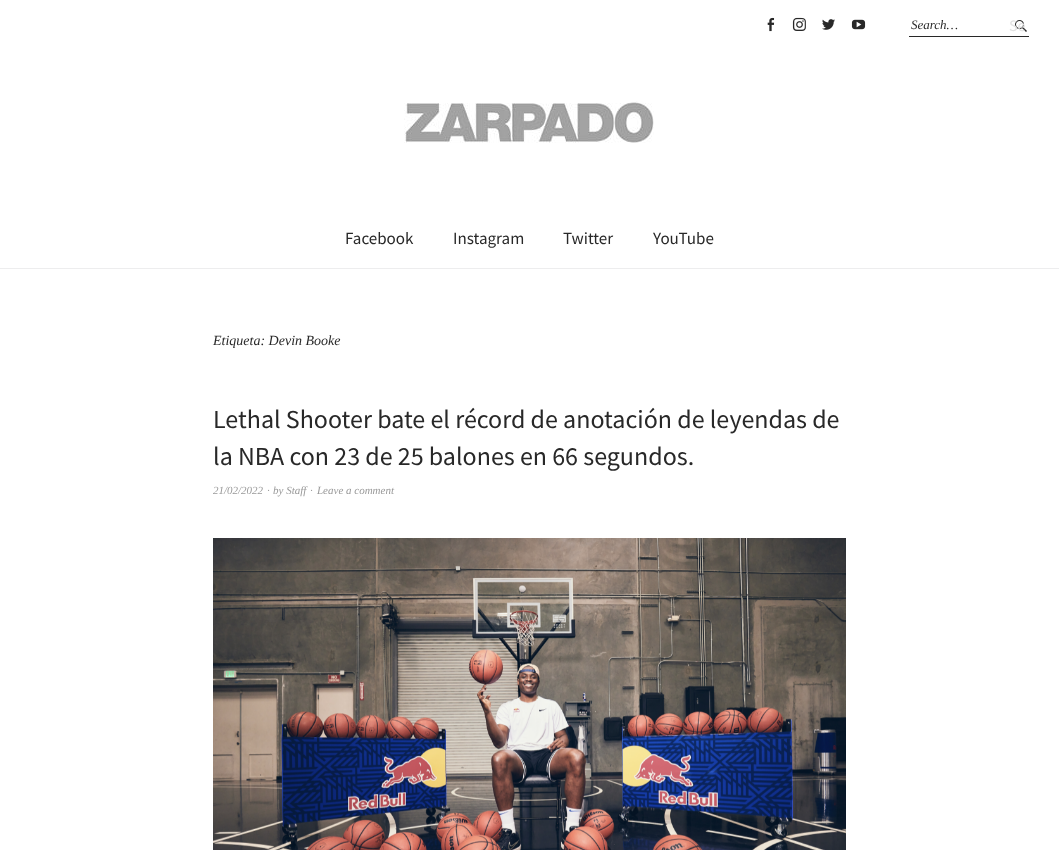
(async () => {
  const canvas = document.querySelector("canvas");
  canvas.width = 1059;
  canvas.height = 850;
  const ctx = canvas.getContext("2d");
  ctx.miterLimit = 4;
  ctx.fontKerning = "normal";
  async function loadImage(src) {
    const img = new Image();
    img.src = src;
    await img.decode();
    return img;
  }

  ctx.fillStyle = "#ffffff";
  ctx.fillRect(0, 0, 1059, 850);
  ctx.fillStyle = "#ededee";
  ctx.fillRect(0, 268, 1059, 1);
  ctx.drawImage(await loadImage("img/1.png"), 767, 17, 8, 15);
  ctx.drawImage(await loadImage("img/2.png"), 792, 17, 14, 14);
  ctx.drawImage(await loadImage("img/3.png"), 822, 19, 13, 11);
  ctx.drawImage(await loadImage("img/4.png"), 851, 19, 15, 11);
  ctx.fillStyle = "#282828";
  ctx.fillRect(909, 36, 120, 1);
  ctx.drawImage(await loadImage("img/5.png"), 1015, 20, 12, 12);
  ctx.drawImage(await loadImage("img/6.png"), 404, 101, 250, 42);
  ctx.drawImage(await loadImage("img/7.png"), 213, 538, 633, 312);
  ctx.font = "italic 13px Liberation Serif";
  ctx.fillText("Search…", 911, 29);
  ctx.font = "16px Source Sans Pro";
  ctx.fillStyle = "#e2e2e2";
  ctx.fillText("Se", 1009, 31);
  ctx.font = "17px Source Sans Pro";
  ctx.fillStyle = "#282828";
  for (const [text, x, y] of [
    ["Facebook", 345, 244],
    ["Instagram", 453, 244],
    ["Twitter", 563, 244],
    ["YouTube", 653, 244],
  ]) {
    ctx.fillText(text, x, y);
  }
  ctx.font = "italic 14px Liberation Serif";
  ctx.fillText("Etiqueta: Devin Booke", 213, 345);
  ctx.font = "26px Source Sans Pro";
  ctx.fillText("Lethal Shooter bate el récord de anotación de leyendas de", 213, 428);
  ctx.fillText("la NBA con 23 de 25 balones en 66 segundos.", 213, 465);
  ctx.font = "italic 11px Liberation Serif";
  ctx.fillStyle = "#999999";
  for (const [text, x, y] of [
    ["21/02/2022", 213, 494],
    ["∙", 267, 494],
    ["by Staff", 273, 494],
    ["∙", 310, 494],
    ["Leave a comment", 317, 494],
  ]) {
    ctx.fillText(text, x, y);
  }
})();
